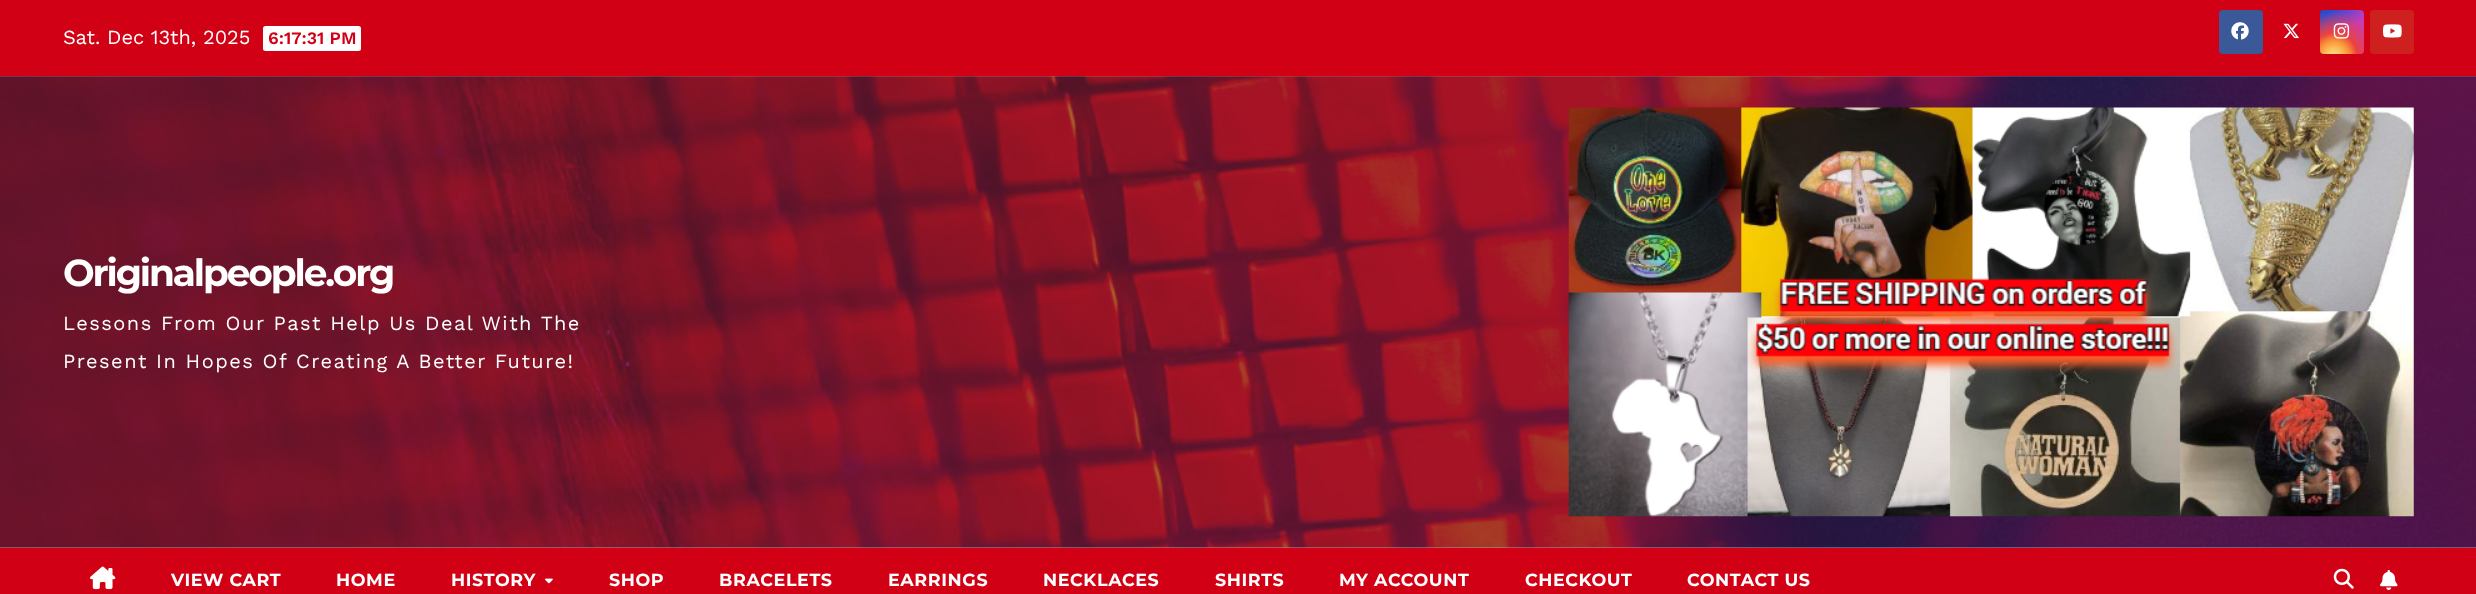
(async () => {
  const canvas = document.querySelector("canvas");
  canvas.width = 2476;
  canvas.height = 594;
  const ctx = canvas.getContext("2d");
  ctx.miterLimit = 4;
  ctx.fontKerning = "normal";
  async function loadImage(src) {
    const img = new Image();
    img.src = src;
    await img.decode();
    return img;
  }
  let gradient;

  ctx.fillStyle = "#9ca2b3";
  ctx.fillRect(0, 0, 2476, 594);
  ctx.fillStyle = "#d10014";
  ctx.fillRect(0, 0, 2476, 76);
  ctx.fillStyle = "#ffffff";
  ctx.beginPath();
  ctx.roundRect(263, 26, 98, 25, 2.5);
  ctx.fill();
  ctx.fillStyle = "#3b5998";
  ctx.beginPath();
  ctx.roundRect(2219, 10, 44, 44, 4);
  ctx.fill();
  ctx.drawImage(await loadImage("img/1.png"), 2231, 22, 18, 18);
  ctx.drawImage(await loadImage("img/2.png"), 2283, 23, 16, 16);
  gradient = ctx.createLinearGradient(2320, 10, 2364, 54);
  gradient.addColorStop(0.12, "#234bd7");
  gradient.addColorStop(0.58, "#c33cbe");
  ctx.fillStyle = gradient;
  ctx.beginPath();
  ctx.roundRect(2320, 10, 44, 44, 4);
  ctx.fill();
  gradient = ctx.createRadialGradient(2334, 56, 0, 2334, 56, 55);
  gradient.addColorStop(0, "#ffe17d");
  gradient.addColorStop(0.1, "#ffcd69");
  gradient.addColorStop(0.28, "#fa9137");
  gradient.addColorStop(0.42, "#eb4141");
  gradient.addColorStop(0.82, "rgba(235, 65, 65, 0)");
  ctx.fillStyle = gradient;
  ctx.beginPath();
  ctx.roundRect(2320, 10, 44, 44, 4);
  ctx.fill();
  ctx.drawImage(await loadImage("img/3.png"), 2333, 23, 17, 16);
  ctx.fillStyle = "#cd201f";
  ctx.beginPath();
  ctx.roundRect(2370, 10, 44, 44, 4);
  ctx.fill();
  ctx.drawImage(await loadImage("img/4.png"), 2383, 24, 19, 14);
  ctx.drawImage(await loadImage("img/5.png"), 0, 76, 2476, 472);
  ctx.drawImage(await loadImage("img/6.png"), 1568, 107, 846, 410);
  ctx.fillStyle = "#d10014";
  ctx.fillRect(0, 548, 2476, 46);
  ctx.drawImage(await loadImage("img/7.png"), 90, 566, 26, 24);
  ctx.drawImage(await loadImage("img/8.png"), 545, 578, 8, 6);
  ctx.drawImage(await loadImage("img/9.png"), 2333, 568, 21, 21);
  ctx.drawImage(await loadImage("img/10.png"), 2380, 570, 18, 20);
  ctx.font = "20px Work Sans";
  ctx.fillStyle = "#ffffff";
  ctx.fillText("Sat. Dec 13th, 2025", 63, 44);
  ctx.font = "600 17.5px Work Sans";
  ctx.fillStyle = "#d10014";
  ctx.fillText("6:17:31 PM", 268, 44);
  ctx.letterSpacing = "-2.1px";
  ctx.font = "bold 37.5px Montserrat";
  ctx.fillStyle = "#ffffff";
  ctx.fillText("Originalpeople.org", 63, 286);
  ctx.letterSpacing = "1.5px";
  ctx.font = "20px Work Sans";
  ctx.fillText("Lessons From Our Past Help Us Deal With The", 63, 330);
  ctx.fillText("Present In Hopes Of Creating A Better Future!", 63, 368);
  ctx.letterSpacing = "0.6px";
  ctx.font = "bold 17.5px Montserrat";
  for (const [text, x, y] of [
    ["VIEW CART", 171, 586],
    ["HOME", 336, 586],
    ["HISTORY", 451, 586],
    ["SHOP", 609, 586],
    ["BRACELETS", 719, 586],
    ["EARRINGS", 888, 586],
    ["NECKLACES", 1043, 586],
    ["SHIRTS", 1215, 586],
    ["MY ACCOUNT", 1339, 586],
    ["CHECKOUT", 1525, 586],
    ["CONTACT US", 1687, 586],
  ]) {
    ctx.fillText(text, x, y);
  }
})();
